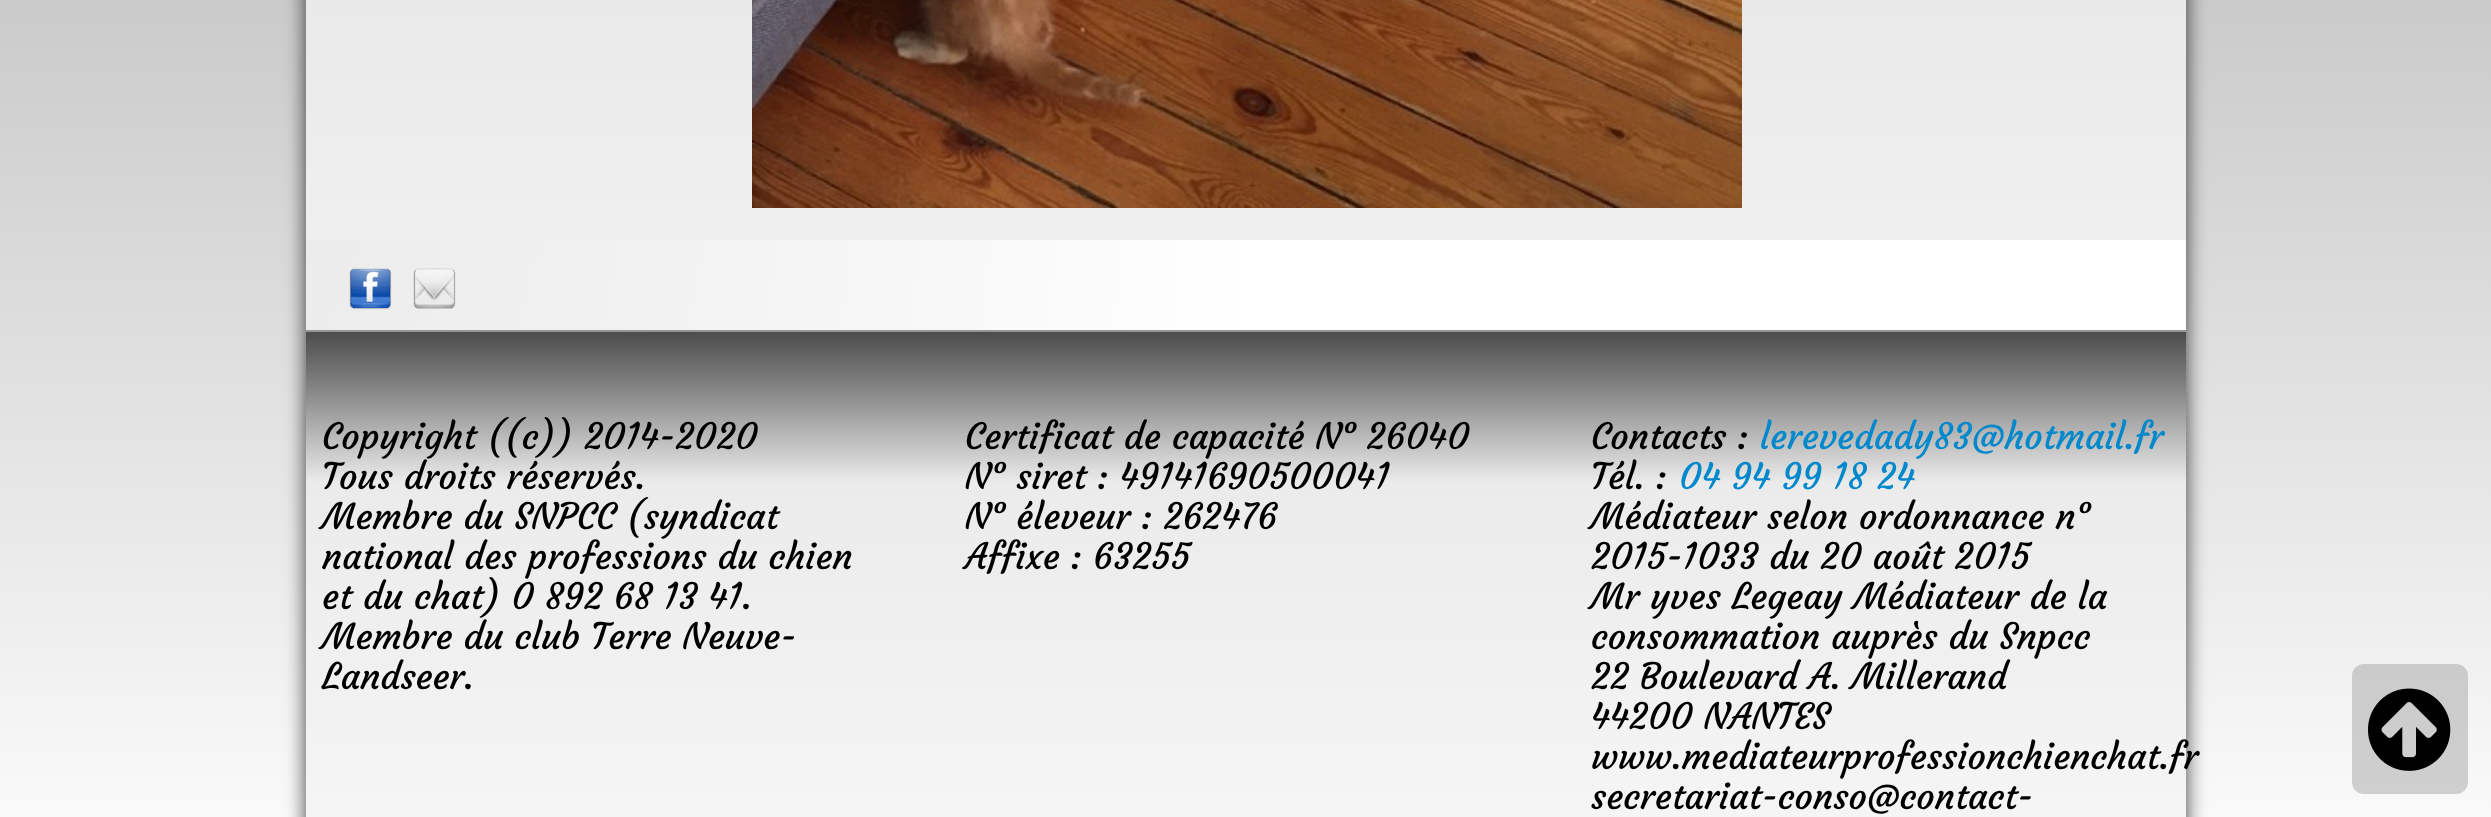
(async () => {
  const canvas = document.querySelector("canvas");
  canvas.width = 2491;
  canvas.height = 817;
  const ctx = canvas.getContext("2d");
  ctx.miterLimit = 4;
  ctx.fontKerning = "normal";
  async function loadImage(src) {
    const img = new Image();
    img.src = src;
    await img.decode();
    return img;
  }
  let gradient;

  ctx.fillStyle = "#ffffff";
  ctx.fillRect(0, 0, 2491, 817);
  gradient = ctx.createLinearGradient(1246, -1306, 1246, 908);
  gradient.addColorStop(0, "#ffffff");
  gradient.addColorStop(0.5, "#bfbfbf");
  gradient.addColorStop(1, "#ffffff");
  ctx.fillStyle = gradient;
  ctx.fillRect(0, 0, 2491, 817);
  ctx.fillStyle = "rgba(0, 0, 0, 0.75)";
  ctx.filter = "blur(10px)";
  ctx.beginPath();
  ctx.roundRect(306, -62, 1880, 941, 32);
  ctx.fill();
  ctx.filter = "none";
  gradient = ctx.createLinearGradient(1246, -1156, 1246, 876);
  gradient.addColorStop(0, "#ffffff");
  gradient.addColorStop(0.5, "#e6e6e6");
  gradient.addColorStop(1, "#ffffff");
  ctx.fillStyle = gradient;
  ctx.fillRect(306, 0, 1880, 330);
  ctx.drawImage(await loadImage("img/1.png"), 752, 0, 990, 208);
  gradient = ctx.createLinearGradient(306, 285, 2186, 285);
  gradient.addColorStop(0, "rgba(235, 235, 235, 0.76)");
  gradient.addColorStop(0.5, "#ffffff");
  gradient.addColorStop(1, "#ffffff");
  ctx.fillStyle = gradient;
  ctx.fillRect(306, 240, 1880, 90);
  ctx.drawImage(await loadImage("img/2.png"), 349, 268, 43, 42);
  ctx.drawImage(await loadImage("img/3.png"), 413, 268, 43, 41);
  gradient = ctx.createLinearGradient(1246, 332, 1246, 384);
  gradient.addColorStop(0, "#4d4d4d");
  gradient.addColorStop(1, "#808080");
  ctx.fillStyle = gradient;
  ctx.fillRect(306, 332, 1880, 52);
  ctx.fillStyle = "#969696";
  ctx.fillRect(306, 330, 1880, 2);
  gradient = ctx.createLinearGradient(1246, 384, 1246, 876);
  gradient.addColorStop(0, "#808080");
  gradient.addColorStop(0.2, "#ebebeb");
  gradient.addColorStop(1, "#f7f7f7");
  ctx.fillStyle = gradient;
  ctx.fillRect(306, 384, 1880, 433);
  ctx.fillStyle = "rgba(165, 165, 165, 0.5)";
  ctx.beginPath();
  ctx.roundRect(2352, 664, 116, 130, 12);
  ctx.fill();
  ctx.drawImage(await loadImage("img/4.png"), 2368, 688, 83, 83);
  ctx.font = "36px Courgette";
  ctx.fillStyle = "#000000";
  for (const [text, x, y] of [
    ["Copyright ((c)) 2014-2020", 322, 449],
    ["Tous droits réservés.", 322, 489],
    ["Membre du SNPCC (syndicat", 322, 529],
    ["national des professions du chien", 322, 569],
    ["et du chat) 0 892 68 13 41.", 322, 609],
    ["Membre du club Terre Neuve-", 322, 649],
    ["Landseer.", 322, 689],
    ["Certificat de capacité N° 26040", 965, 449],
    ["N° siret : 49141690500041", 965, 489],
    ["N° éleveur : 262476", 965, 529],
    ["Affixe : 63255", 965, 569],
    ["Contacts :", 1591, 449],
  ]) {
    ctx.fillText(text, x, y);
  }
  ctx.fillStyle = "#0088cc";
  ctx.fillText("lerevedady83@hotmail.fr", 1760, 449);
  ctx.fillStyle = "#000000";
  ctx.fillText("Tél. :", 1591, 489);
  ctx.fillStyle = "#0088cc";
  ctx.fillText("04 94 99 18 24", 1679, 489);
  ctx.fillStyle = "#000000";
  for (const [text, x, y] of [
    ["Médiateur selon ordonnance n°", 1591, 529],
    ["2015-1033 du 20 août 2015", 1591, 569],
    ["Mr yves Legeay Médiateur de la", 1591, 609],
    ["consommation auprès du Snpcc", 1591, 649],
    ["22 Boulevard A. Millerand", 1591, 689],
    ["44200 NANTES", 1591, 729],
    ["www.mediateurprofessionchienchat.fr", 1591, 769],
    ["secretariat-conso@contact-", 1591, 809],
  ]) {
    ctx.fillText(text, x, y);
  }
})();
